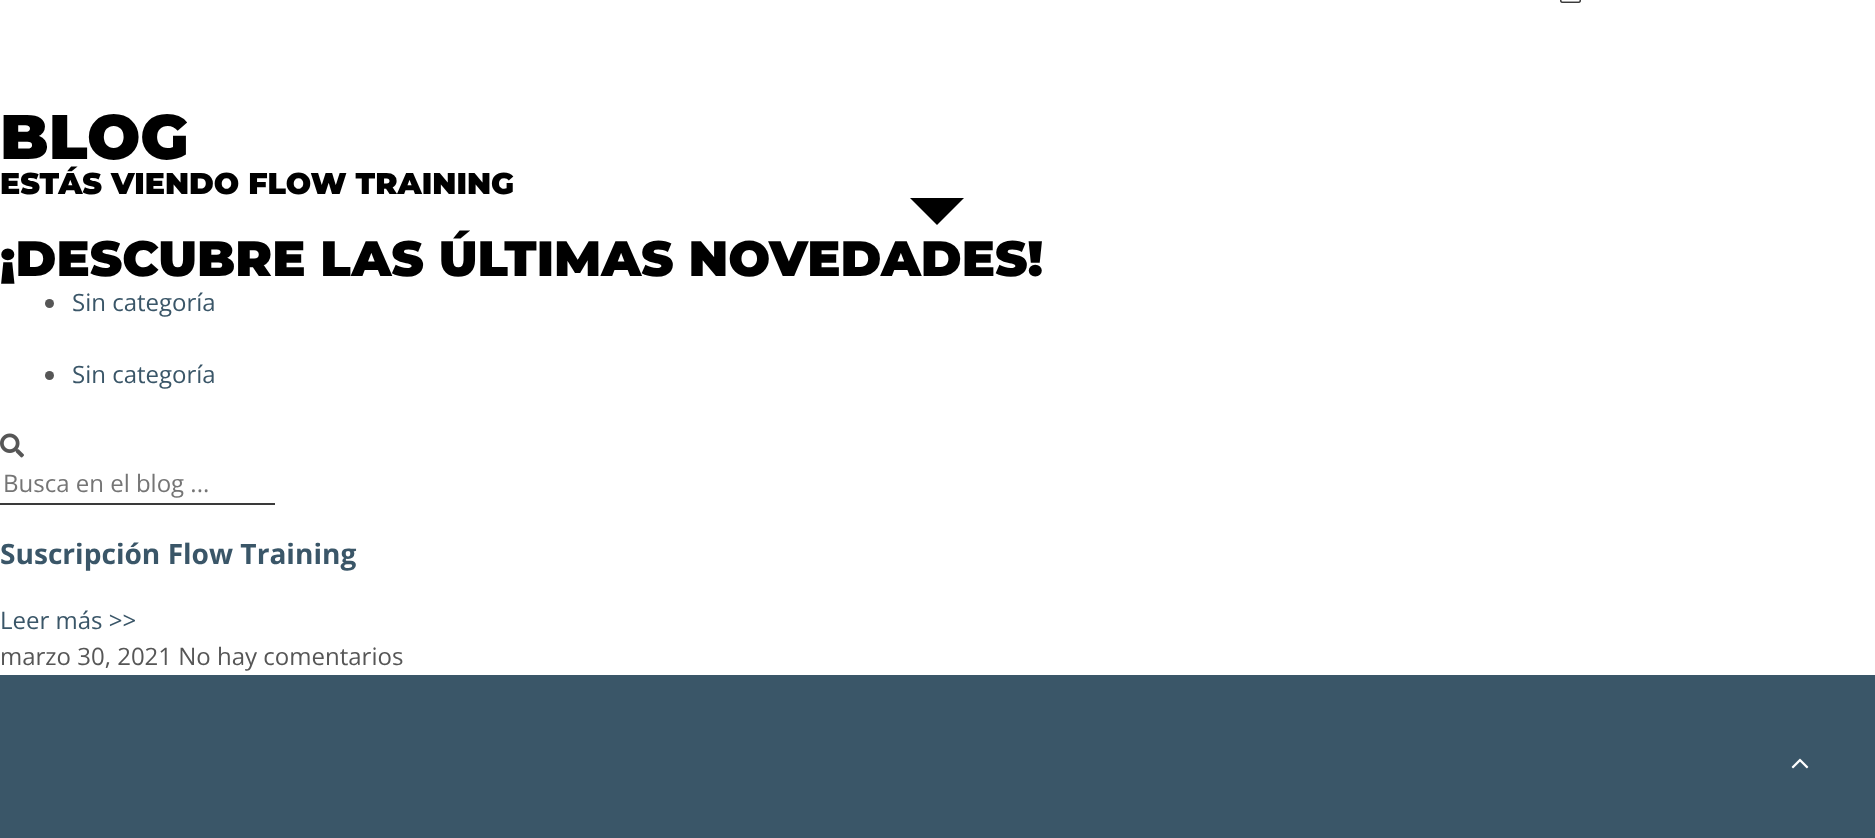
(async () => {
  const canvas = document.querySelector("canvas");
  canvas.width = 1875;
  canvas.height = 838;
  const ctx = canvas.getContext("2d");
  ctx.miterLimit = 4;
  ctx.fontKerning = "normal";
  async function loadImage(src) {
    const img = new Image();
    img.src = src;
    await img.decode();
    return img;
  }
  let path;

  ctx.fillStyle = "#ffffff";
  ctx.fillRect(0, 0, 1875, 838);
  ctx.drawImage(await loadImage("img/1.png"), 1560, 0, 21, 3);
  ctx.fillStyle = "#000000";
  path = new Path2D("M937 225L910 198H964Z");
  ctx.fill(path);
  ctx.fillStyle = "#565656";
  ctx.beginPath();
  ctx.arc(49.5, 303.5, 4.5, 0, Math.PI * 2);
  ctx.fill();
  ctx.beginPath();
  ctx.arc(49.5, 375.5, 4.5, 0, Math.PI * 2);
  ctx.fill();
  ctx.drawImage(await loadImage("img/2.png"), 0, 433, 24, 25);
  ctx.fillStyle = "#3a3a3a";
  ctx.fillRect(0, 503, 275, 2);
  ctx.fillStyle = "#3a5668";
  ctx.fillRect(0, 675, 1875, 163);
  ctx.drawImage(await loadImage("img/3.png"), 1791, 758, 18, 11);
  ctx.font = "900 63px Montserrat";
  ctx.fillStyle = "#000000";
  ctx.fillText("BLOG", 0, 159);
  ctx.font = "900 30px Montserrat";
  ctx.fillText("ESTÁS VIENDO FLOW TRAINING", 0, 194);
  ctx.font = "900 49.5px Montserrat";
  ctx.fillText("¡DESCUBRE LAS ÚLTIMAS NOVEDADES!", 0, 276);
  ctx.font = "24px Open Sans";
  ctx.fillStyle = "#3a5668";
  ctx.fillText("Sin categoría", 72, 311);
  ctx.fillText("Sin categoría", 72, 383);
  ctx.fillStyle = "#757575";
  ctx.fillText("Busca en el blog ...", 3, 492);
  ctx.font = "bold 28.1px Open Sans";
  ctx.fillStyle = "#3a5668";
  ctx.fillText("Suscripción Flow Training", 0, 564);
  ctx.font = "24px Open Sans";
  ctx.fillText("Leer más >>", 0, 629);
  ctx.fillStyle = "#565656";
  ctx.fillText("marzo 30, 2021 No hay comentarios", 0, 665);
})();
